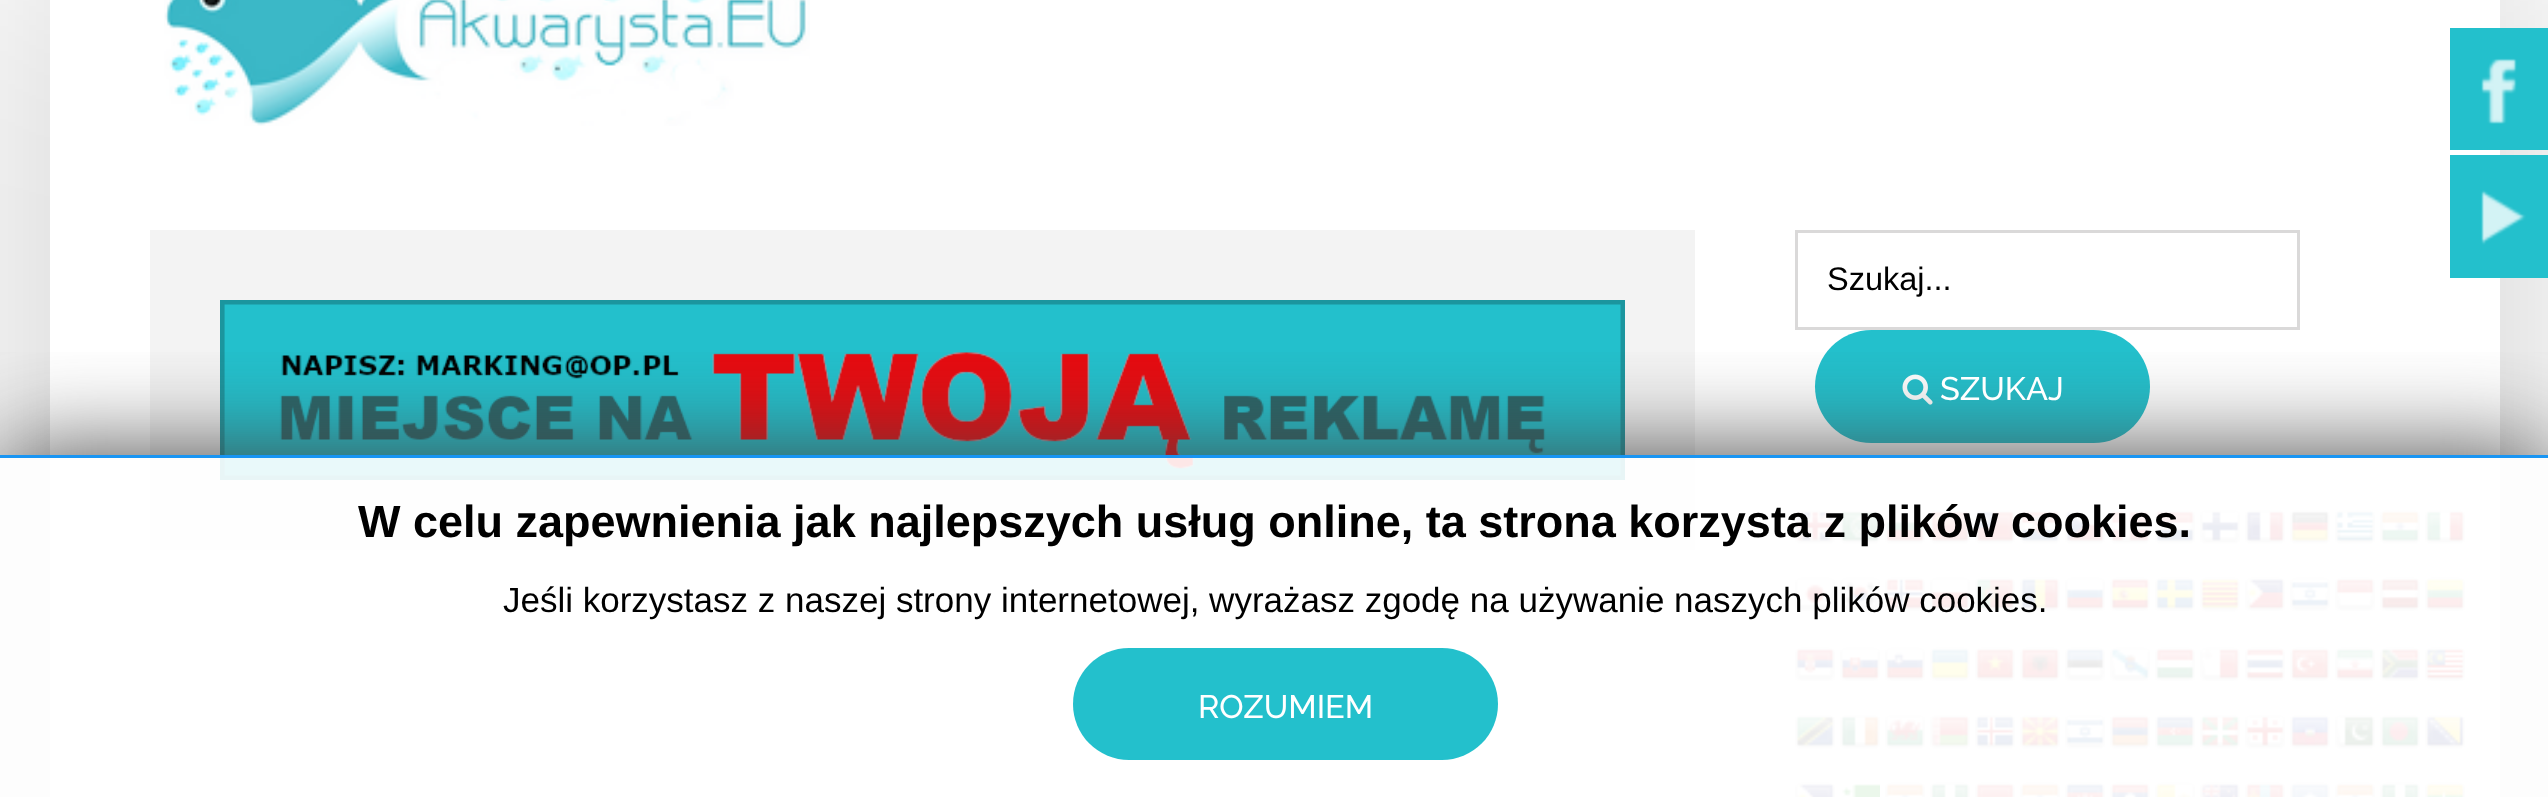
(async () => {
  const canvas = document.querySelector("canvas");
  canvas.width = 2548;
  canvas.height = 797;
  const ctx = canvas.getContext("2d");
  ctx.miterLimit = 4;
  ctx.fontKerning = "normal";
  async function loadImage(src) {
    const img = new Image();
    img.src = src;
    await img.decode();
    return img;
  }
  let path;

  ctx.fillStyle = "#ffffff";
  ctx.fillRect(0, 0, 2548, 797);
  ctx.save();
  path = new Path2D("M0 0H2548V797H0ZM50-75H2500V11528H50Z");
  ctx.clip(path, "evenodd");
  ctx.fillStyle = "rgba(0, 0, 0, 0.2)";
  ctx.filter = "blur(142.5px)";
  ctx.beginPath();
  ctx.rect(50, -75, 2450, 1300);
  ctx.fill();
  ctx.filter = "none";
  ctx.restore();
  ctx.drawImage(await loadImage("img/1.png"), 164, 0, 646, 126);
  ctx.fillStyle = "#23c0cc";
  ctx.fillRect(2450, 28, 98, 122);
  ctx.drawImage(await loadImage("img/2.png"), 2481, 58, 36, 66);
  ctx.fillRect(2450, 155, 98, 123);
  ctx.drawImage(await loadImage("img/3.png"), 2481, 190, 45, 55);
  ctx.fillStyle = "#f3f3f3";
  ctx.fillRect(150, 230, 1545, 320);
  ctx.drawImage(await loadImage("img/4.png"), 220, 300, 1405, 180);
  ctx.strokeStyle = "#dad9d9";
  ctx.lineWidth = 3;
  ctx.strokeRect(1796.5, 231.5, 502, 97);
  ctx.fillStyle = "#23c0cc";
  ctx.beginPath();
  ctx.roundRect(1815, 330, 335, 113, 56.5);
  ctx.fill();
  ctx.drawImage(await loadImage("img/5.png"), 1902, 374, 31, 31);
  ctx.drawImage(await loadImage("img/6.png"), 1795, 510, 40, 35);
  ctx.drawImage(await loadImage("img/7.png"), 1840, 510, 40, 35);
  ctx.drawImage(await loadImage("img/8.png"), 1885, 510, 40, 35);
  ctx.drawImage(await loadImage("img/9.png"), 1930, 510, 40, 35);
  ctx.drawImage(await loadImage("img/10.png"), 1975, 510, 40, 35);
  ctx.drawImage(await loadImage("img/11.png"), 2020, 510, 40, 35);
  ctx.drawImage(await loadImage("img/12.png"), 2065, 510, 40, 35);
  ctx.drawImage(await loadImage("img/13.png"), 2110, 510, 40, 35);
  ctx.drawImage(await loadImage("img/14.png"), 2155, 510, 40, 35);
  ctx.drawImage(await loadImage("img/15.png"), 2200, 510, 40, 35);
  ctx.drawImage(await loadImage("img/16.png"), 2245, 510, 40, 35);
  ctx.drawImage(await loadImage("img/17.png"), 2290, 510, 40, 35);
  ctx.drawImage(await loadImage("img/18.png"), 2335, 510, 40, 35);
  ctx.drawImage(await loadImage("img/19.png"), 2380, 510, 40, 35);
  ctx.drawImage(await loadImage("img/20.png"), 2425, 510, 40, 35);
  ctx.drawImage(await loadImage("img/21.png"), 1795, 577, 40, 35);
  ctx.drawImage(await loadImage("img/22.png"), 1840, 577, 40, 35);
  ctx.drawImage(await loadImage("img/23.png"), 1885, 577, 40, 35);
  ctx.drawImage(await loadImage("img/24.png"), 1930, 577, 40, 35);
  ctx.drawImage(await loadImage("img/25.png"), 1975, 577, 40, 35);
  ctx.drawImage(await loadImage("img/26.png"), 2020, 577, 40, 35);
  ctx.drawImage(await loadImage("img/27.png"), 2065, 577, 40, 35);
  ctx.drawImage(await loadImage("img/28.png"), 2110, 577, 40, 35);
  ctx.drawImage(await loadImage("img/29.png"), 2155, 577, 40, 35);
  ctx.drawImage(await loadImage("img/30.png"), 2200, 577, 40, 36);
  ctx.drawImage(await loadImage("img/31.png"), 2245, 577, 40, 35);
  ctx.drawImage(await loadImage("img/32.png"), 2290, 577, 40, 35);
  ctx.drawImage(await loadImage("img/33.png"), 2335, 577, 40, 35);
  ctx.drawImage(await loadImage("img/34.png"), 2380, 577, 40, 35);
  ctx.drawImage(await loadImage("img/35.png"), 2425, 577, 40, 35);
  ctx.drawImage(await loadImage("img/36.png"), 1795, 647, 40, 35);
  ctx.drawImage(await loadImage("img/37.png"), 1840, 647, 40, 35);
  ctx.drawImage(await loadImage("img/38.png"), 1885, 647, 40, 35);
  ctx.drawImage(await loadImage("img/39.png"), 1930, 647, 40, 35);
  ctx.drawImage(await loadImage("img/40.png"), 1975, 647, 40, 35);
  ctx.drawImage(await loadImage("img/41.png"), 2020, 647, 40, 35);
  ctx.drawImage(await loadImage("img/42.png"), 2065, 647, 40, 35);
  ctx.drawImage(await loadImage("img/43.png"), 2110, 647, 40, 35);
  ctx.drawImage(await loadImage("img/44.png"), 2155, 647, 40, 35);
  ctx.drawImage(await loadImage("img/45.png"), 2200, 647, 40, 35);
  ctx.drawImage(await loadImage("img/46.png"), 2245, 647, 40, 35);
  ctx.drawImage(await loadImage("img/47.png"), 2290, 647, 40, 35);
  ctx.drawImage(await loadImage("img/48.png"), 2335, 647, 40, 35);
  ctx.drawImage(await loadImage("img/49.png"), 2380, 647, 40, 35);
  ctx.drawImage(await loadImage("img/50.png"), 2425, 647, 40, 35);
  ctx.drawImage(await loadImage("img/51.png"), 1795, 715, 40, 35);
  ctx.drawImage(await loadImage("img/52.png"), 1840, 715, 40, 35);
  ctx.drawImage(await loadImage("img/53.png"), 1885, 715, 40, 35);
  ctx.drawImage(await loadImage("img/54.png"), 1930, 715, 40, 35);
  ctx.drawImage(await loadImage("img/55.png"), 1975, 715, 40, 35);
  ctx.drawImage(await loadImage("img/56.png"), 2020, 715, 40, 35);
  ctx.drawImage(await loadImage("img/57.png"), 2065, 715, 40, 35);
  ctx.drawImage(await loadImage("img/58.png"), 2110, 715, 40, 35);
  ctx.drawImage(await loadImage("img/59.png"), 2155, 715, 40, 35);
  ctx.drawImage(await loadImage("img/60.png"), 2200, 715, 40, 35);
  ctx.drawImage(await loadImage("img/61.png"), 2245, 715, 40, 35);
  ctx.drawImage(await loadImage("img/62.png"), 2290, 715, 40, 35);
  ctx.drawImage(await loadImage("img/63.png"), 2335, 715, 40, 35);
  ctx.drawImage(await loadImage("img/64.png"), 2380, 715, 40, 35);
  ctx.drawImage(await loadImage("img/65.png"), 2425, 715, 40, 35);
  ctx.drawImage(await loadImage("img/66.png"), 1795, 782, 40, 15);
  ctx.drawImage(await loadImage("img/67.png"), 1840, 784, 40, 13);
  ctx.drawImage(await loadImage("img/68.png"), 1885, 782, 40, 15);
  ctx.drawImage(await loadImage("img/69.png"), 1930, 782, 40, 15);
  ctx.drawImage(await loadImage("img/70.png"), 1975, 782, 40, 15);
  ctx.drawImage(await loadImage("img/71.png"), 2020, 782, 40, 15);
  ctx.drawImage(await loadImage("img/72.png"), 2065, 782, 40, 15);
  ctx.drawImage(await loadImage("img/73.png"), 2110, 782, 40, 15);
  ctx.drawImage(await loadImage("img/74.png"), 2155, 782, 40, 15);
  ctx.drawImage(await loadImage("img/75.png"), 2200, 782, 40, 15);
  ctx.drawImage(await loadImage("img/76.png"), 2245, 782, 40, 15);
  ctx.drawImage(await loadImage("img/77.png"), 2290, 782, 40, 15);
  ctx.drawImage(await loadImage("img/68.png"), 2335, 782, 40, 15);
  ctx.drawImage(await loadImage("img/78.png"), 2380, 782, 40, 15);
  ctx.drawImage(await loadImage("img/79.png"), 2425, 782, 40, 15);
  ctx.save();
  ctx.beginPath();
  ctx.rect(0, 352, 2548, 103);
  ctx.clip();
  ctx.fillStyle = "#444444";
  ctx.filter = "blur(50px)";
  ctx.beginPath();
  ctx.rect(0, 455, 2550, 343);
  ctx.fill();
  ctx.filter = "none";
  ctx.restore();
  ctx.fillStyle = "rgba(255, 255, 255, 0.9)";
  ctx.fillRect(0, 455, 2548, 342);
  ctx.fillStyle = "rgba(0, 137, 242, 0.9)";
  ctx.fillRect(0, 455, 2548, 3);
  ctx.fillStyle = "#23c0cc";
  ctx.beginPath();
  ctx.roundRect(1073, 648, 425, 112, 56);
  ctx.fill();
  ctx.font = "32.5px Liberation Sans";
  ctx.fillStyle = "#000000";
  ctx.fillText("Szukaj...", 1827, 290);
  ctx.font = "500 32.5px Raleway";
  ctx.fillStyle = "#ffffff";
  ctx.fillText("SZUKAJ", 1940, 400);
  ctx.font = "bold 45px Liberation Sans";
  ctx.fillStyle = "#000000";
  ctx.fillText("W celu zapewnienia jak najlepszych usług online, ta strona korzysta z plików cookies.", 358, 537);
  ctx.font = "35px Liberation Sans";
  ctx.fillText("Jeśli korzystasz z naszej strony internetowej, wyrażasz zgodę na używanie naszych plików cookies.", 503, 612);
  ctx.font = "500 32.5px Raleway";
  ctx.fillStyle = "#ffffff";
  ctx.fillText("ROZUMIEM", 1198, 718);
})();
